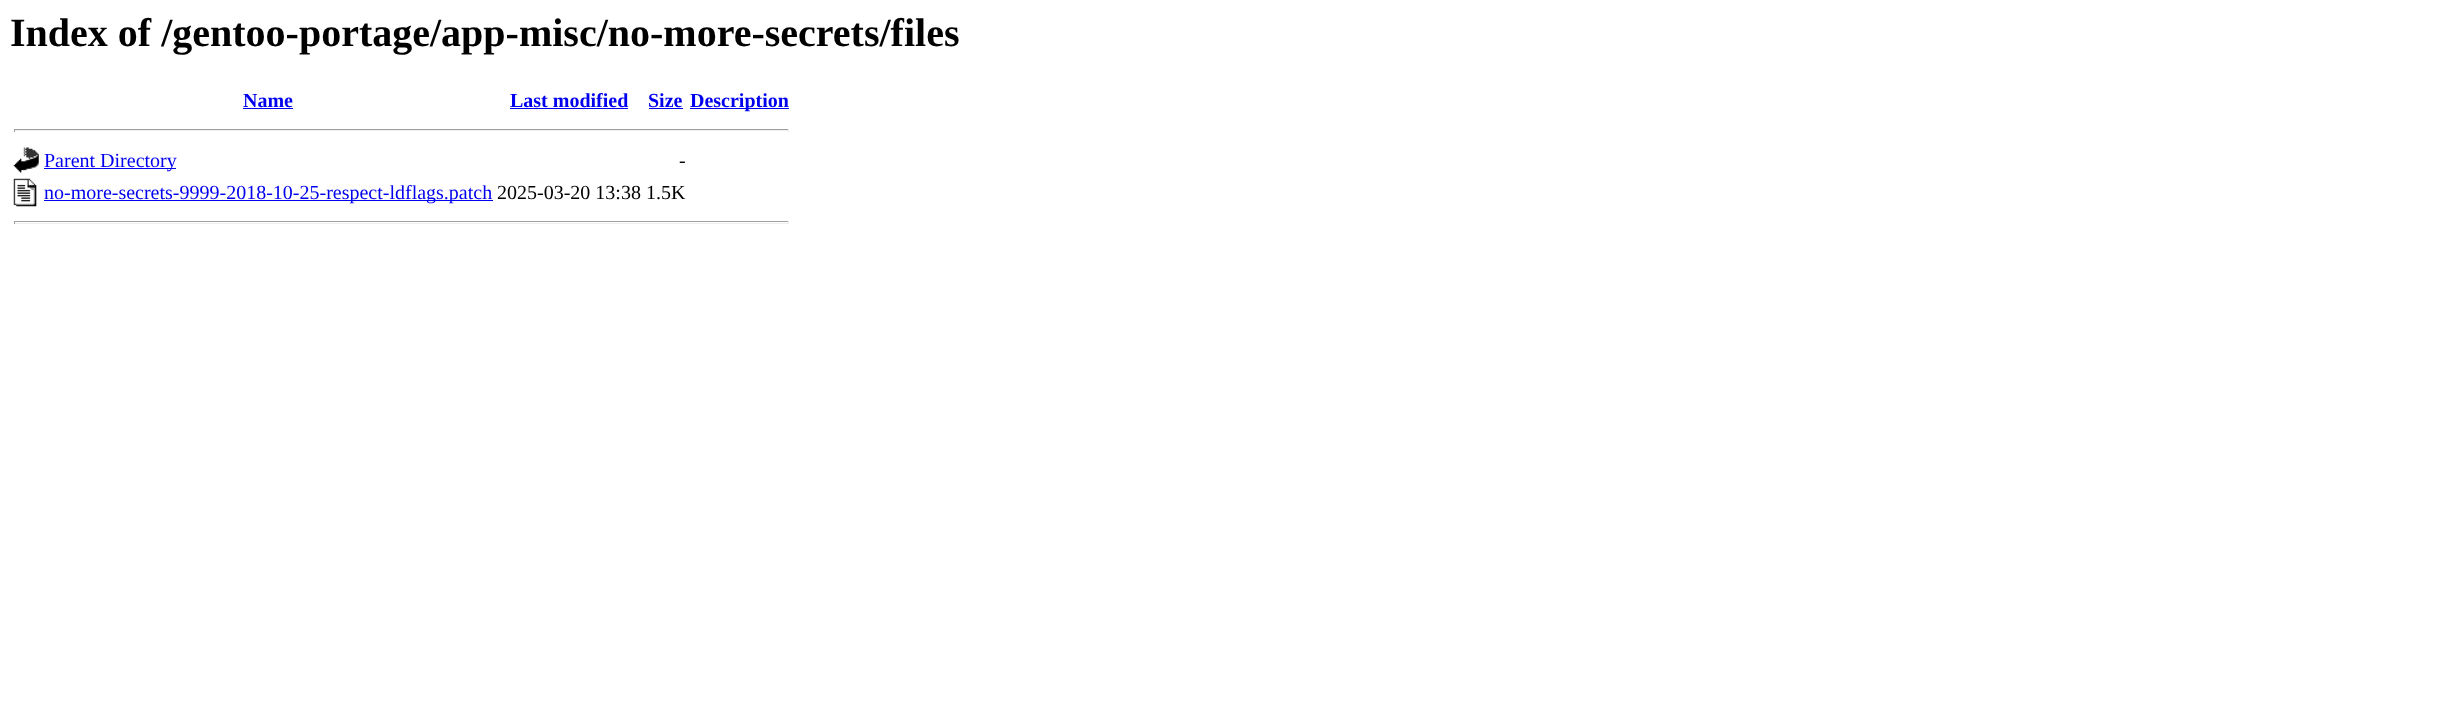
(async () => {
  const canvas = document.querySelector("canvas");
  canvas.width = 2462;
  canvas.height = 706;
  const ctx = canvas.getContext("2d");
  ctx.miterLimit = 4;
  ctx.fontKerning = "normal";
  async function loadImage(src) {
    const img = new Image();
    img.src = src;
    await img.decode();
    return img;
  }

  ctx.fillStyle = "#ffffff";
  ctx.fillRect(0, 0, 2462, 706);
  for (const [x, y, w, h, color] of [
    [243, 108, 50, 1, "#0000ee"],
    [510, 108, 118, 1, "#0000ee"],
    [649, 108, 34, 1, "#0000ee"],
    [690, 108, 99, 1, "#0000ee"],
    [14, 129, 775, 1, "#9f9f9f"],
    [788, 129, 1, 3, "#eeeeee"],
    [14, 130, 775, 1, "#eeeeee"],
    [14, 129, 1, 3, "#9f9f9f"],
  ]) {
    ctx.fillStyle = color;
    ctx.fillRect(x, y, w, h);
  }
  ctx.drawImage(await loadImage("img/1.png"), 13, 147, 26, 26);
  ctx.fillStyle = "#0000ee";
  ctx.fillRect(44, 168, 132, 1);
  ctx.drawImage(await loadImage("img/2.png"), 13, 178, 24, 29);
  for (const [x, y, w, h, color] of [
    [44, 200, 449, 1, "#0000ee"],
    [14, 221, 775, 1, "#9f9f9f"],
    [788, 221, 1, 3, "#eeeeee"],
    [14, 223, 775, 1, "#eeeeee"],
    [14, 221, 1, 3, "#9f9f9f"],
  ]) {
    ctx.fillStyle = color;
    ctx.fillRect(x, y, w, h);
  }
  ctx.font = "bold 40px Liberation Serif";
  ctx.fillStyle = "#000000";
  ctx.fillText("Index of /gentoo-portage/app-misc/no-more-secrets/files", 10, 46);
  ctx.font = "bold 20px Liberation Serif";
  ctx.fillStyle = "#0000ee";
  for (const [text, x, y] of [
    ["Name", 243, 107],
    ["Last modified", 510, 107],
    ["Size", 648, 107],
    ["Description", 690, 107],
  ]) {
    ctx.fillText(text, x, y);
  }
  ctx.font = "20px Liberation Serif";
  ctx.fillText("Parent Directory", 44, 167);
  ctx.fillStyle = "#000000";
  ctx.fillText("-", 679, 167);
  ctx.fillStyle = "#0000ee";
  ctx.fillText("no-more-secrets-9999-2018-10-25-respect-ldflags.patch", 44, 199);
  ctx.fillStyle = "#000000";
  ctx.fillText("2025-03-20 13:38 1.5K", 497, 199);
})();
